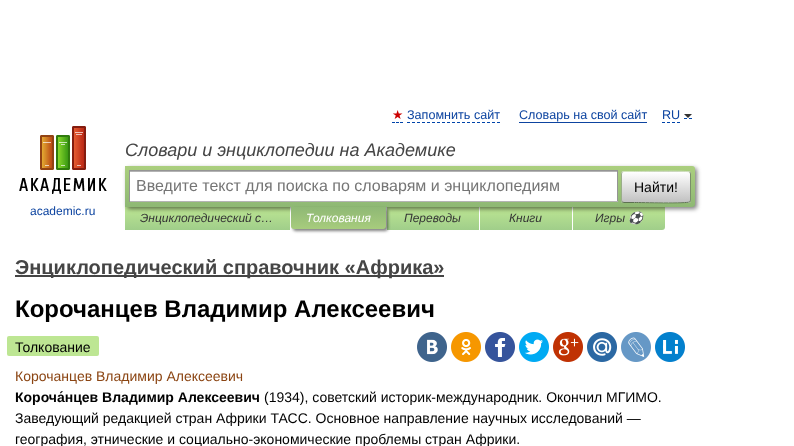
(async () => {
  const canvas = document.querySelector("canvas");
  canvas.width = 794;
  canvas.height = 446;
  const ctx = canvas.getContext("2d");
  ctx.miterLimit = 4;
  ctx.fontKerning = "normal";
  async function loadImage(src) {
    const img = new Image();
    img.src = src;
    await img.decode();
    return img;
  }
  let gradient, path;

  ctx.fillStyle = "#ffffff";
  ctx.fillRect(0, 0, 794, 446);
  path = new Path2D("M392 122.5H395M396 122.5H399M400 122.5H403");
  ctx.strokeStyle = "#0044aa";
  ctx.stroke(path);
  path = new Path2D("M407 122.5H500");
  ctx.setLineDash([3, 2]);
  ctx.stroke(path);
  ctx.fillStyle = "#0d44a0";
  ctx.fillRect(519, 122, 128, 1);
  path = new Path2D("M662 122.5H680");
  ctx.stroke(path);
  path = new Path2D("M684 118.5H687M689 118.5H692");
  ctx.setLineDash([]);
  ctx.stroke(path);
  ctx.fillStyle = "#333333";
  path = new Path2D("M684 114H692L688 118Z");
  ctx.fill(path);
  gradient = ctx.createLinearGradient(208, 207, 208, 230);
  gradient.addColorStop(0, "#bde693");
  gradient.addColorStop(1, "#a0ce8a");
  ctx.fillStyle = gradient;
  ctx.fillRect(125, 207, 165, 23);
  gradient = ctx.createLinearGradient(433, 207, 433, 230);
  gradient.addColorStop(0, "#bde693");
  gradient.addColorStop(1, "#a0ce8a");
  ctx.fillStyle = gradient;
  ctx.fillRect(387, 207, 92, 23);
  gradient = ctx.createLinearGradient(526, 207, 526, 230);
  gradient.addColorStop(0, "#bde693");
  gradient.addColorStop(1, "#a0ce8a");
  ctx.fillStyle = gradient;
  ctx.fillRect(480, 207, 92, 23);
  gradient = ctx.createLinearGradient(619, 207, 619, 230);
  gradient.addColorStop(0, "#bde693");
  gradient.addColorStop(1, "#a0ce8a");
  ctx.fillStyle = gradient;
  ctx.beginPath();
  ctx.roundRect(573, 207, 92, 23, [0, 0, 3, 0]);
  ctx.fill();
  ctx.fillStyle = "rgba(0, 0, 0, 0.5)";
  ctx.filter = "blur(2px)";
  ctx.beginPath();
  ctx.roundRect(127, 168, 570, 41, 3);
  ctx.fill();
  ctx.filter = "none";
  gradient = ctx.createLinearGradient(410, 166, 410, 207);
  gradient.addColorStop(0, "#abcf7e");
  gradient.addColorStop(1, "#8eb874");
  ctx.fillStyle = gradient;
  ctx.beginPath();
  ctx.roundRect(125, 166, 570, 41, [0, 3, 3, 0]);
  ctx.fill();
  for (const [x, y, w, h, color] of [
    [130, 172, 487, 29, "#ffffff"],
    [130, 171, 487, 1, "#b3b3b3"],
    [129, 170, 489, 1, "#949494"],
    [617, 170, 1, 32, "#949494"],
    [129, 201, 489, 1, "#b4b4b4"],
    [129, 170, 1, 32, "#949494"],
  ]) {
    ctx.fillStyle = color;
    ctx.fillRect(x, y, w, h);
  }
  ctx.save();
  ctx.beginPath();
  ctx.roundRect(621, 171, 70, 32, 3);
  ctx.clip();
  gradient = ctx.createLinearGradient(656, 142, 656, 172);
  gradient.addColorStop(0, "#ffffff");
  gradient.addColorStop(1, "#c1c1c1");
  ctx.fillStyle = gradient;
  ctx.fillRect(621, 171, 70, 1);
  gradient = ctx.createLinearGradient(656, 172, 656, 202);
  gradient.addColorStop(0, "#ffffff");
  gradient.addColorStop(1, "#c1c1c1");
  ctx.fillStyle = gradient;
  ctx.fillRect(621, 172, 70, 30);
  gradient = ctx.createLinearGradient(656, 202, 656, 232);
  gradient.addColorStop(0, "#ffffff");
  gradient.addColorStop(1, "#c1c1c1");
  ctx.fillStyle = gradient;
  ctx.fillRect(621, 202, 70, 1);
  ctx.restore();
  path = new Path2D("M622 172L624 171.5H634.5C641 171.5 687.5 170.5 689.5 172H690");
  ctx.strokeStyle = "#d1e4bc";
  ctx.stroke(path);
  path = new Path2D("M690 172C690 172.5 690.5 173.5 690.5 174V200C690.5 200.5 690 201.5 690 202");
  ctx.strokeStyle = "#7a8e69";
  ctx.stroke(path);
  path = new Path2D("M690 202H689.5C687.5 203.5 641 202.5 634.5 202.5H624L622 202");
  ctx.strokeStyle = "#5d7250";
  ctx.stroke(path);
  path = new Path2D("M622 202C622 201.5 621.5 200.5 621.5 200V174C621.5 173.5 622 172.5 622 172");
  ctx.strokeStyle = "#9aae89";
  ctx.stroke(path);
  ctx.drawImage(await loadImage("img/1.png"), 19, 126, 88, 68);
  ctx.fillStyle = "rgba(0, 0, 0, 0.5)";
  ctx.filter = "blur(1.5px)";
  ctx.beginPath();
  ctx.roundRect(293, 209, 95, 22, 3);
  ctx.fill();
  ctx.filter = "none";
  gradient = ctx.createLinearGradient(339, 207, 339, 229);
  gradient.addColorStop(0, "#8fb875");
  gradient.addColorStop(1, "#a7cc7d");
  ctx.fillStyle = gradient;
  ctx.beginPath();
  ctx.roundRect(291, 207, 95, 22, [0, 0, 3, 3]);
  ctx.fill();
  ctx.fillStyle = "#454545";
  ctx.fillRect(15, 275, 429, 2);
  ctx.fillStyle = "#bde693";
  ctx.beginPath();
  ctx.roundRect(7, 336, 92, 20, 2);
  ctx.fill();
  ctx.drawImage(await loadImage("img/2.png"), 417, 332, 30, 30);
  ctx.drawImage(await loadImage("img/3.png"), 451, 332, 30, 30);
  ctx.drawImage(await loadImage("img/4.png"), 485, 332, 30, 30);
  ctx.drawImage(await loadImage("img/5.png"), 519, 332, 30, 30);
  ctx.drawImage(await loadImage("img/6.png"), 553, 332, 30, 30);
  ctx.drawImage(await loadImage("img/7.png"), 587, 332, 30, 30);
  ctx.drawImage(await loadImage("img/8.png"), 621, 332, 30, 30);
  ctx.drawImage(await loadImage("img/9.png"), 655, 332, 30, 30);
  ctx.font = "12.6px DejaVu Sans";
  ctx.fillStyle = "#cc0000";
  ctx.fillText("★", 392, 119);
  ctx.font = "12.6px Liberation Sans";
  ctx.fillStyle = "#0d44a0";
  for (const [text, x, y] of [
    ["Запомнить сайт", 407, 119],
    ["Словарь на свой сайт", 519, 119],
    ["RU", 662, 119],
  ]) {
    ctx.fillText(text, x, y);
  }
  ctx.font = "italic 18px Liberation Sans";
  ctx.fillStyle = "#454545";
  ctx.fillText("Словари и энциклопедии на Академике", 125, 156);
  ctx.font = "16px Liberation Sans";
  ctx.fillStyle = "#757575";
  ctx.fillText("Введите текст для поиска по словарям и энциклопедиям", 136, 191);
  ctx.font = "14px Liberation Sans";
  ctx.fillStyle = "#000000";
  ctx.fillText("Найти!", 634, 192);
  ctx.font = "12px Liberation Sans";
  ctx.fillStyle = "#0d44a0";
  ctx.fillText("academic.ru", 30, 215);
  ctx.font = "italic 12px Liberation Sans";
  ctx.fillStyle = "#353535";
  ctx.fillText("Энциклопедический с…", 140, 222);
  ctx.fillStyle = "#ffffff";
  ctx.fillText("Толкования", 306, 222);
  ctx.fillStyle = "#353535";
  for (const [text, x, y] of [
    ["Переводы", 404, 222],
    ["Книги", 509, 222],
    ["Игры", 595, 222],
  ]) {
    ctx.fillText(text, x, y);
  }
  ctx.font = "italic 12px Noto Color Emoji";
  ctx.fillText("⚽", 628, 222);
  ctx.font = "bold 20px Liberation Sans";
  ctx.fillStyle = "#454545";
  ctx.fillText("Энциклопедический справочник «Африка»", 15, 274);
  ctx.font = "bold 24px Liberation Sans";
  ctx.fillStyle = "#000000";
  ctx.fillText("Корочанцев Владимир Алексеевич", 15, 317);
  ctx.font = "14px Liberation Sans";
  ctx.fillText("Толкование", 15, 352);
  ctx.fillStyle = "#8b4513";
  ctx.fillText("Корочанцев Владимир Алексеевич", 15, 381);
  ctx.font = "bold 14px Liberation Sans";
  ctx.fillStyle = "#000000";
  ctx.fillText("Короча́нцев Владимир Алексеевич", 15, 402);
  ctx.font = "14px Liberation Sans";
  for (const [text, x, y] of [
    ["(1934), советский историк-международник. Окончил МГИМО.", 264, 402],
    ["Заведующий редакцией стран Африки ТАСС. Основное направление научных исследований —", 15, 423],
    ["география, этнические и социально-экономические проблемы стран Африки.", 15, 444],
  ]) {
    ctx.fillText(text, x, y);
  }
})();
